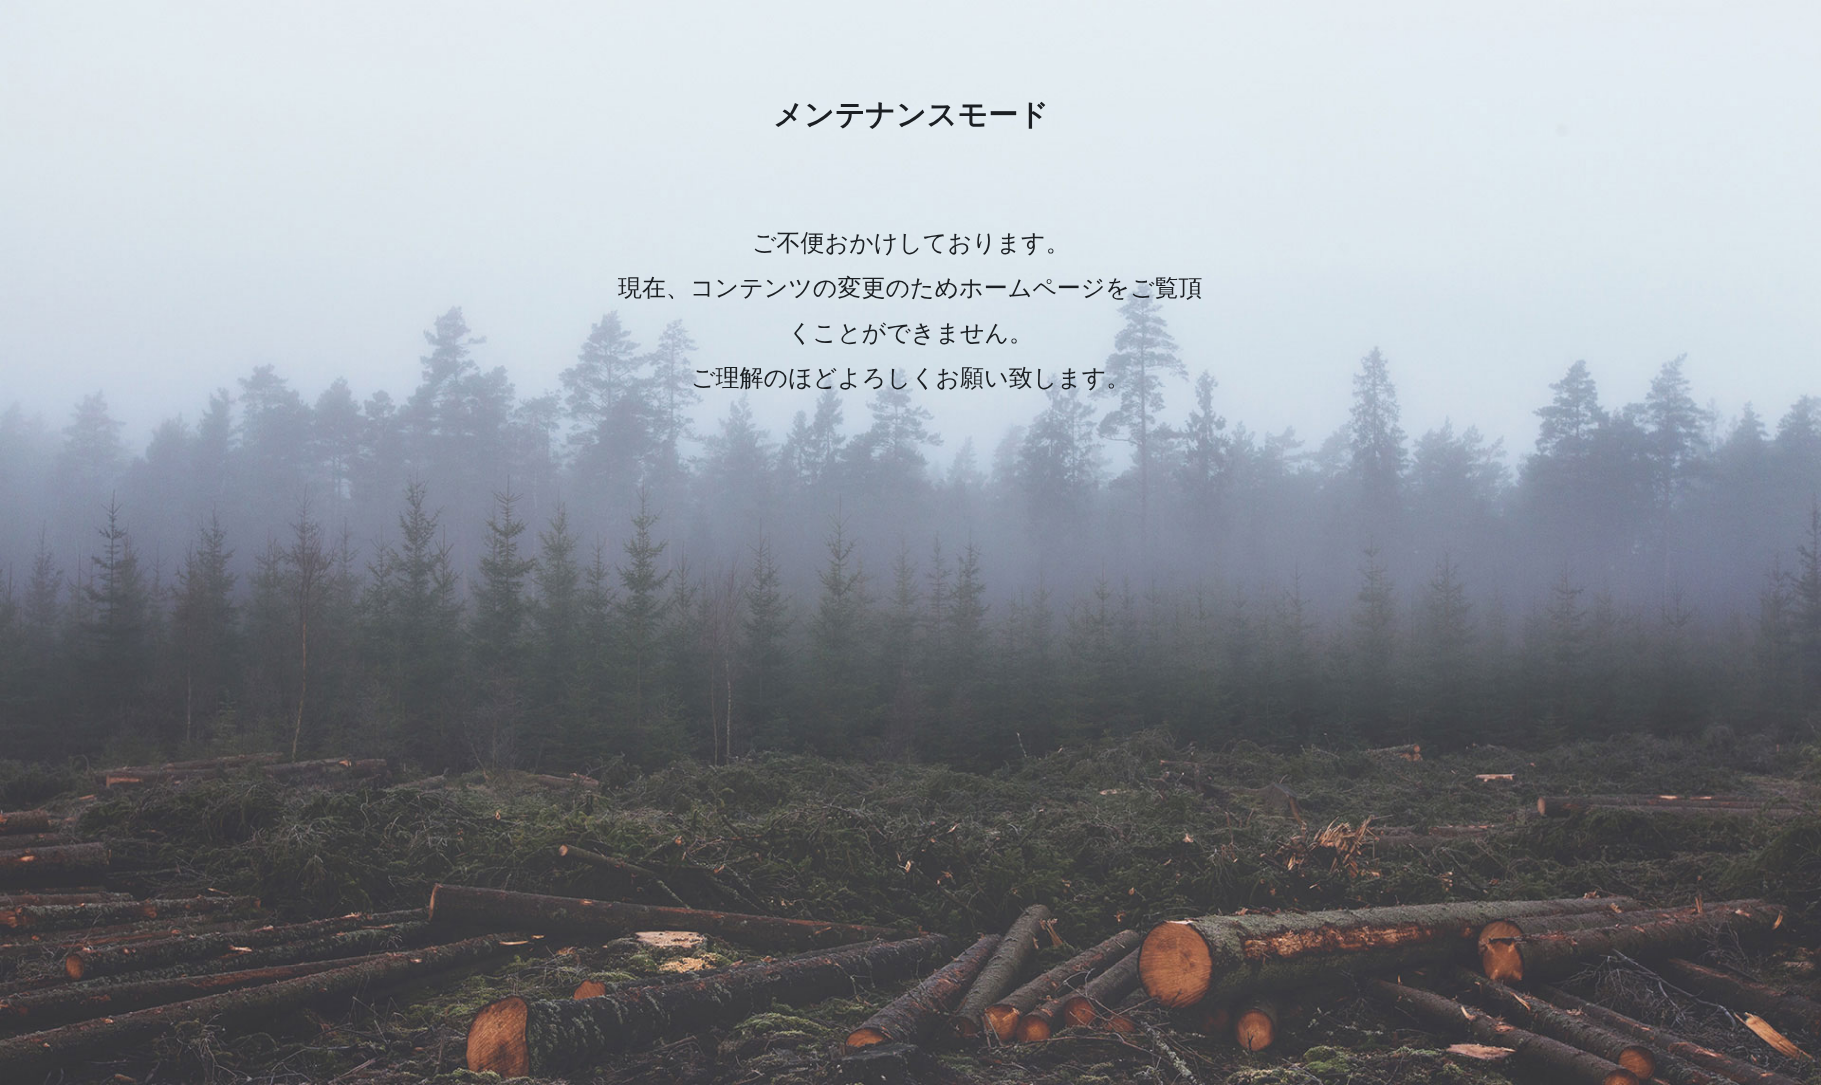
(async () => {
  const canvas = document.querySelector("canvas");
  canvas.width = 1821;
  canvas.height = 1085;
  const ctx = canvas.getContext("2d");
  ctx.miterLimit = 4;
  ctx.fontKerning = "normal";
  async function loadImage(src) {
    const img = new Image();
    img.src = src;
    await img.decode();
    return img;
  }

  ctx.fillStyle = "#ffffff";
  ctx.fillRect(0, 0, 1821, 1085);
  ctx.drawImage(await loadImage("img/1.png"), 0, 0, 1821, 1085);
  ctx.font = "bold 30px WenQuanYi Zen Hei";
  ctx.fillStyle = "#1b1f23";
  ctx.fillText("メンテナンスモード", 773, 125);
  ctx.font = "500 24px WenQuanYi Zen Hei";
  for (const [text, x, y] of [
    ["ご不便おかけしております。", 752, 251],
    ["現在、コンテンツの変更のためホームページをご覧頂", 618, 296],
    ["くことができません。", 788, 341],
    ["ご理解のほどよろしくお願い致します。", 691, 386],
  ]) {
    ctx.fillText(text, x, y);
  }
})();
